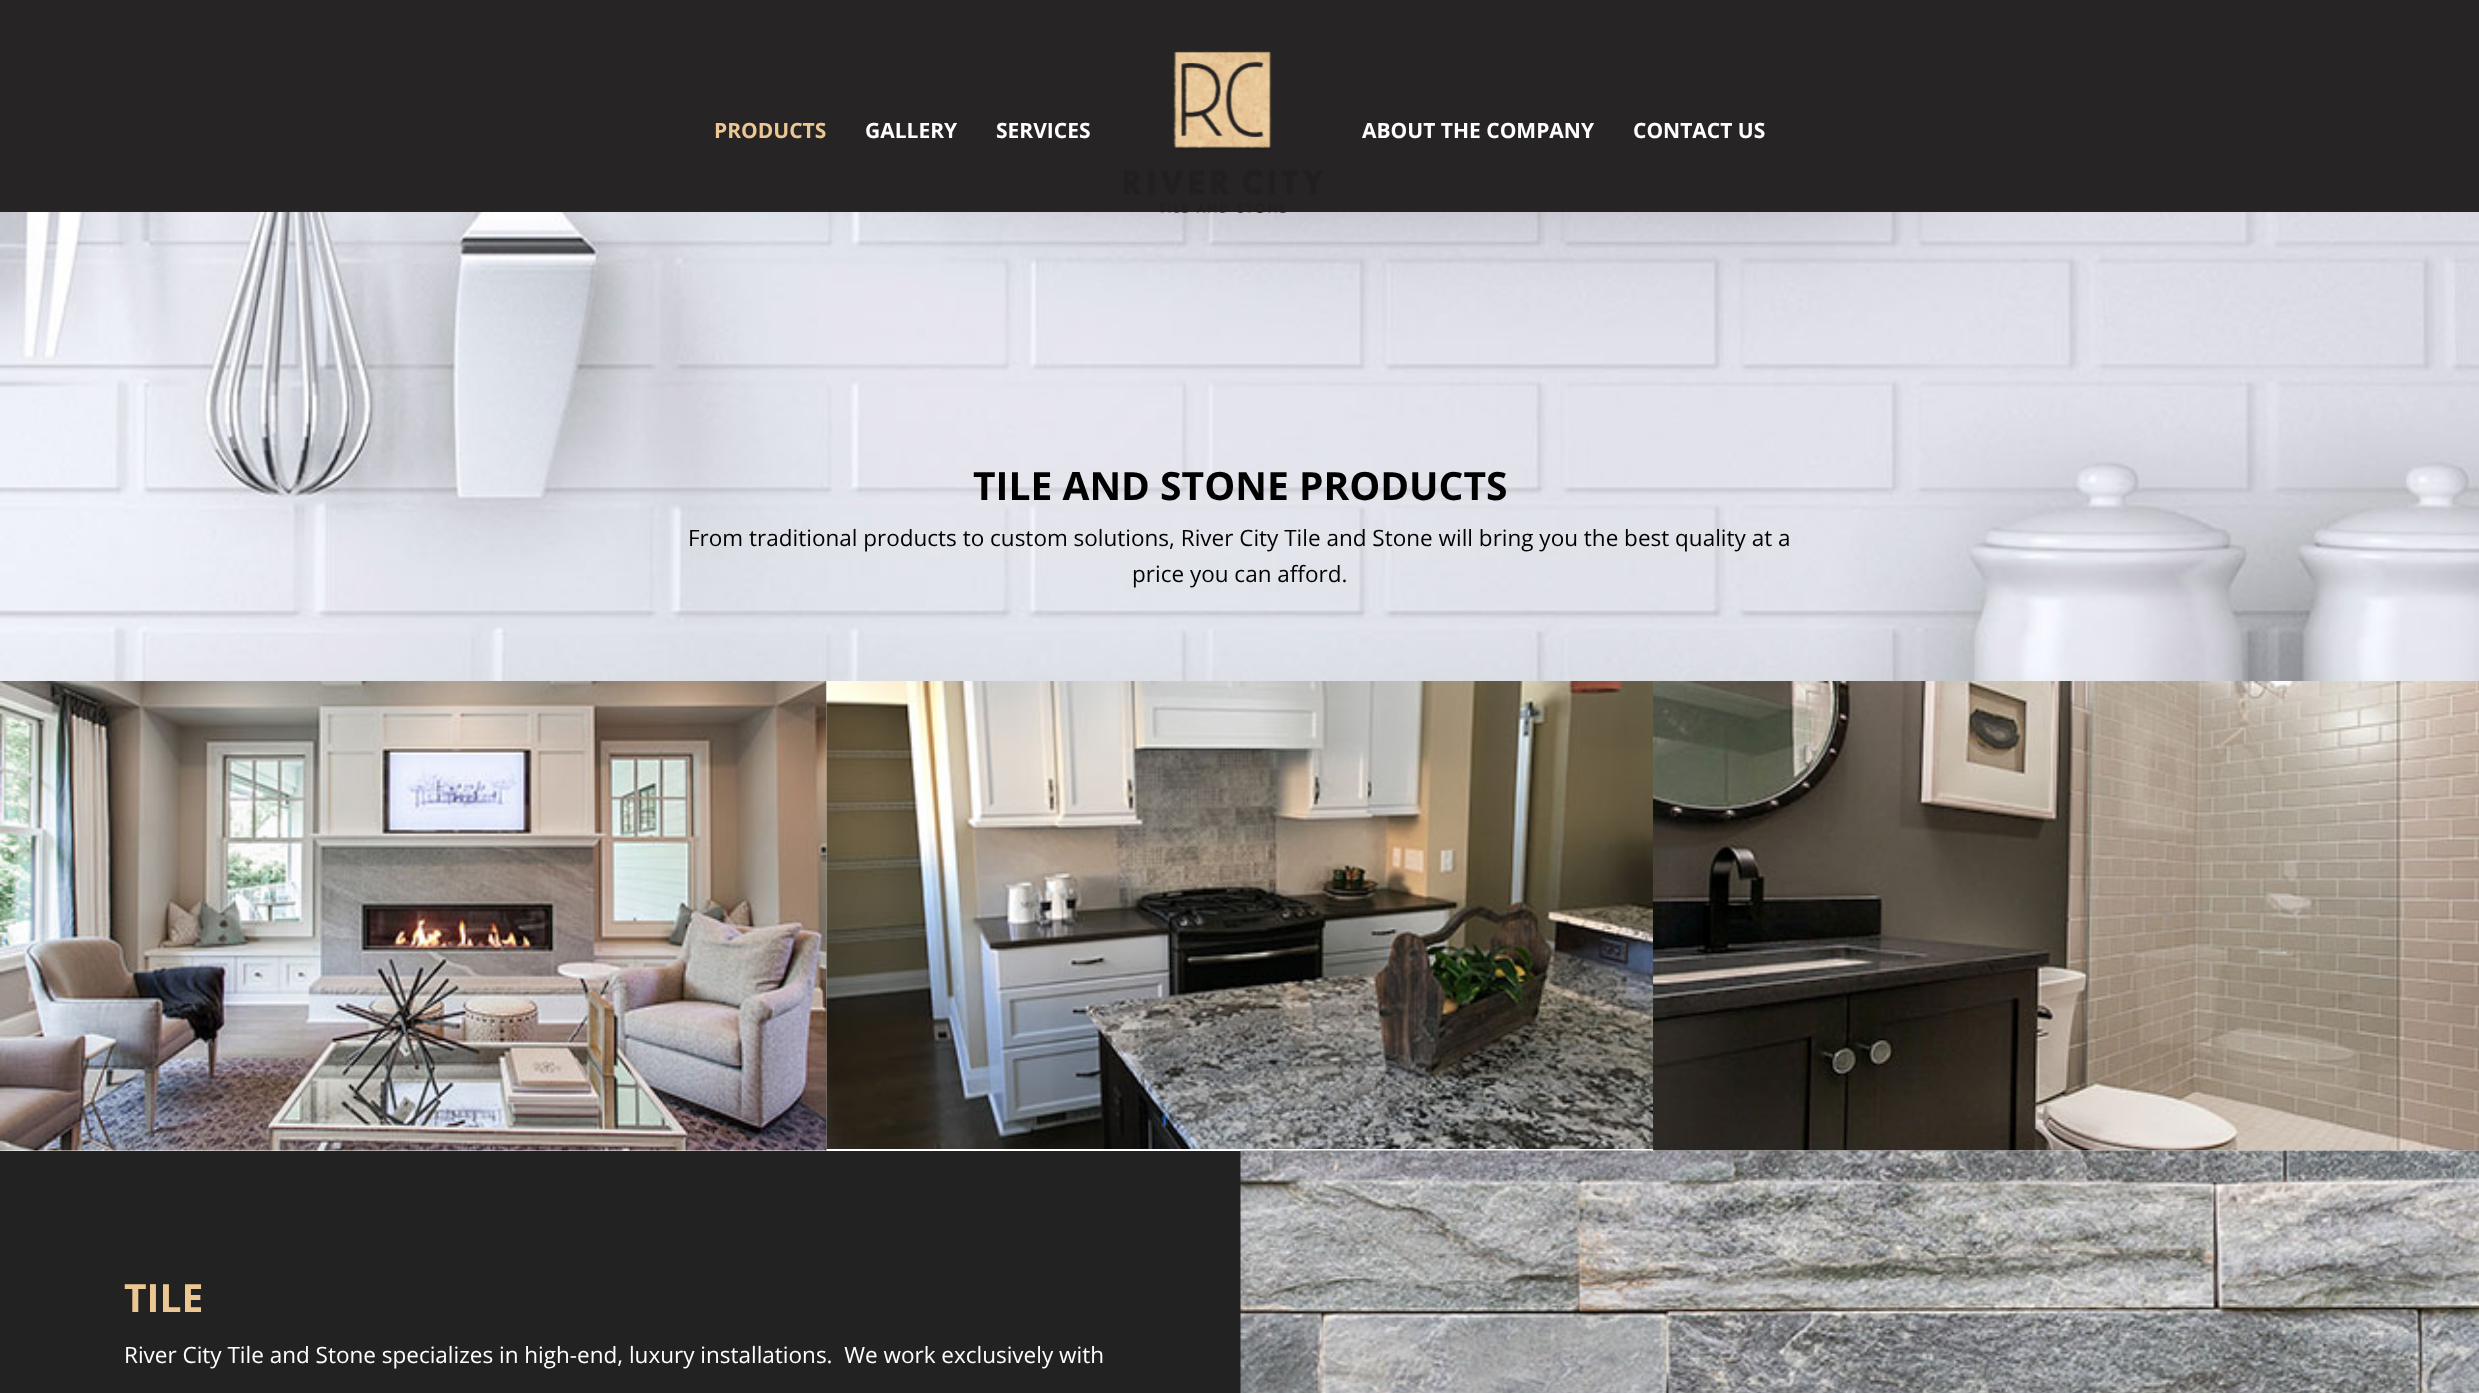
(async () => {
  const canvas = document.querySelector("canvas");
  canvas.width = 2479;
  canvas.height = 1393;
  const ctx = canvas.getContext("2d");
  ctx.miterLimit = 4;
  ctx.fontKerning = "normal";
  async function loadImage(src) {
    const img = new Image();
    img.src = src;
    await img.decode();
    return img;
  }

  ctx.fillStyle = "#ffffff";
  ctx.fillRect(0, 0, 2479, 1393);
  ctx.fillStyle = "#262424";
  ctx.fillRect(0, 0, 2479, 212);
  ctx.drawImage(await loadImage("img/2.png"), 0, 212, 2479, 469);
  ctx.drawImage(await loadImage("img/1.png"), 1124, 51, 198, 162);
  ctx.drawImage(await loadImage("img/3.png"), 0, 681, 827, 470);
  ctx.drawImage(await loadImage("img/4.png"), 826, 681, 827, 468);
  ctx.drawImage(await loadImage("img/5.png"), 1653, 681, 826, 470);
  ctx.fillStyle = "#222222";
  ctx.fillRect(0, 1151, 1241, 242);
  ctx.drawImage(await loadImage("img/6.png"), 1240, 1150, 1239, 243);
  ctx.font = "bold 21px Open Sans";
  ctx.fillStyle = "#ecc793";
  ctx.fillText("PRODUCTS", 714, 138);
  ctx.fillStyle = "#ffffff";
  for (const [text, x, y] of [
    ["GALLERY", 865, 138],
    ["SERVICES", 996, 138],
    ["ABOUT THE COMPANY", 1362, 138],
    ["CONTACT US", 1633, 138],
  ]) {
    ctx.fillText(text, x, y);
  }
  ctx.font = "bold 39px Open Sans";
  ctx.fillStyle = "#000000";
  ctx.fillText("TILE AND STONE PRODUCTS", 973, 500);
  ctx.font = "22.5px Open Sans";
  ctx.fillText("From traditional products to custom solutions, River City Tile and Stone will bring you the best quality at a", 688, 546);
  ctx.fillText("price you can afford.", 1132, 582);
  ctx.font = "bold 39px Open Sans";
  ctx.fillStyle = "#ecc793";
  ctx.fillText("TILE", 124, 1312);
  ctx.font = "22.5px Open Sans";
  ctx.fillStyle = "#ffffff";
  ctx.fillText("River City Tile and Stone specializes in high-end, luxury installations.  We work exclusively with", 124, 1363);
})();
